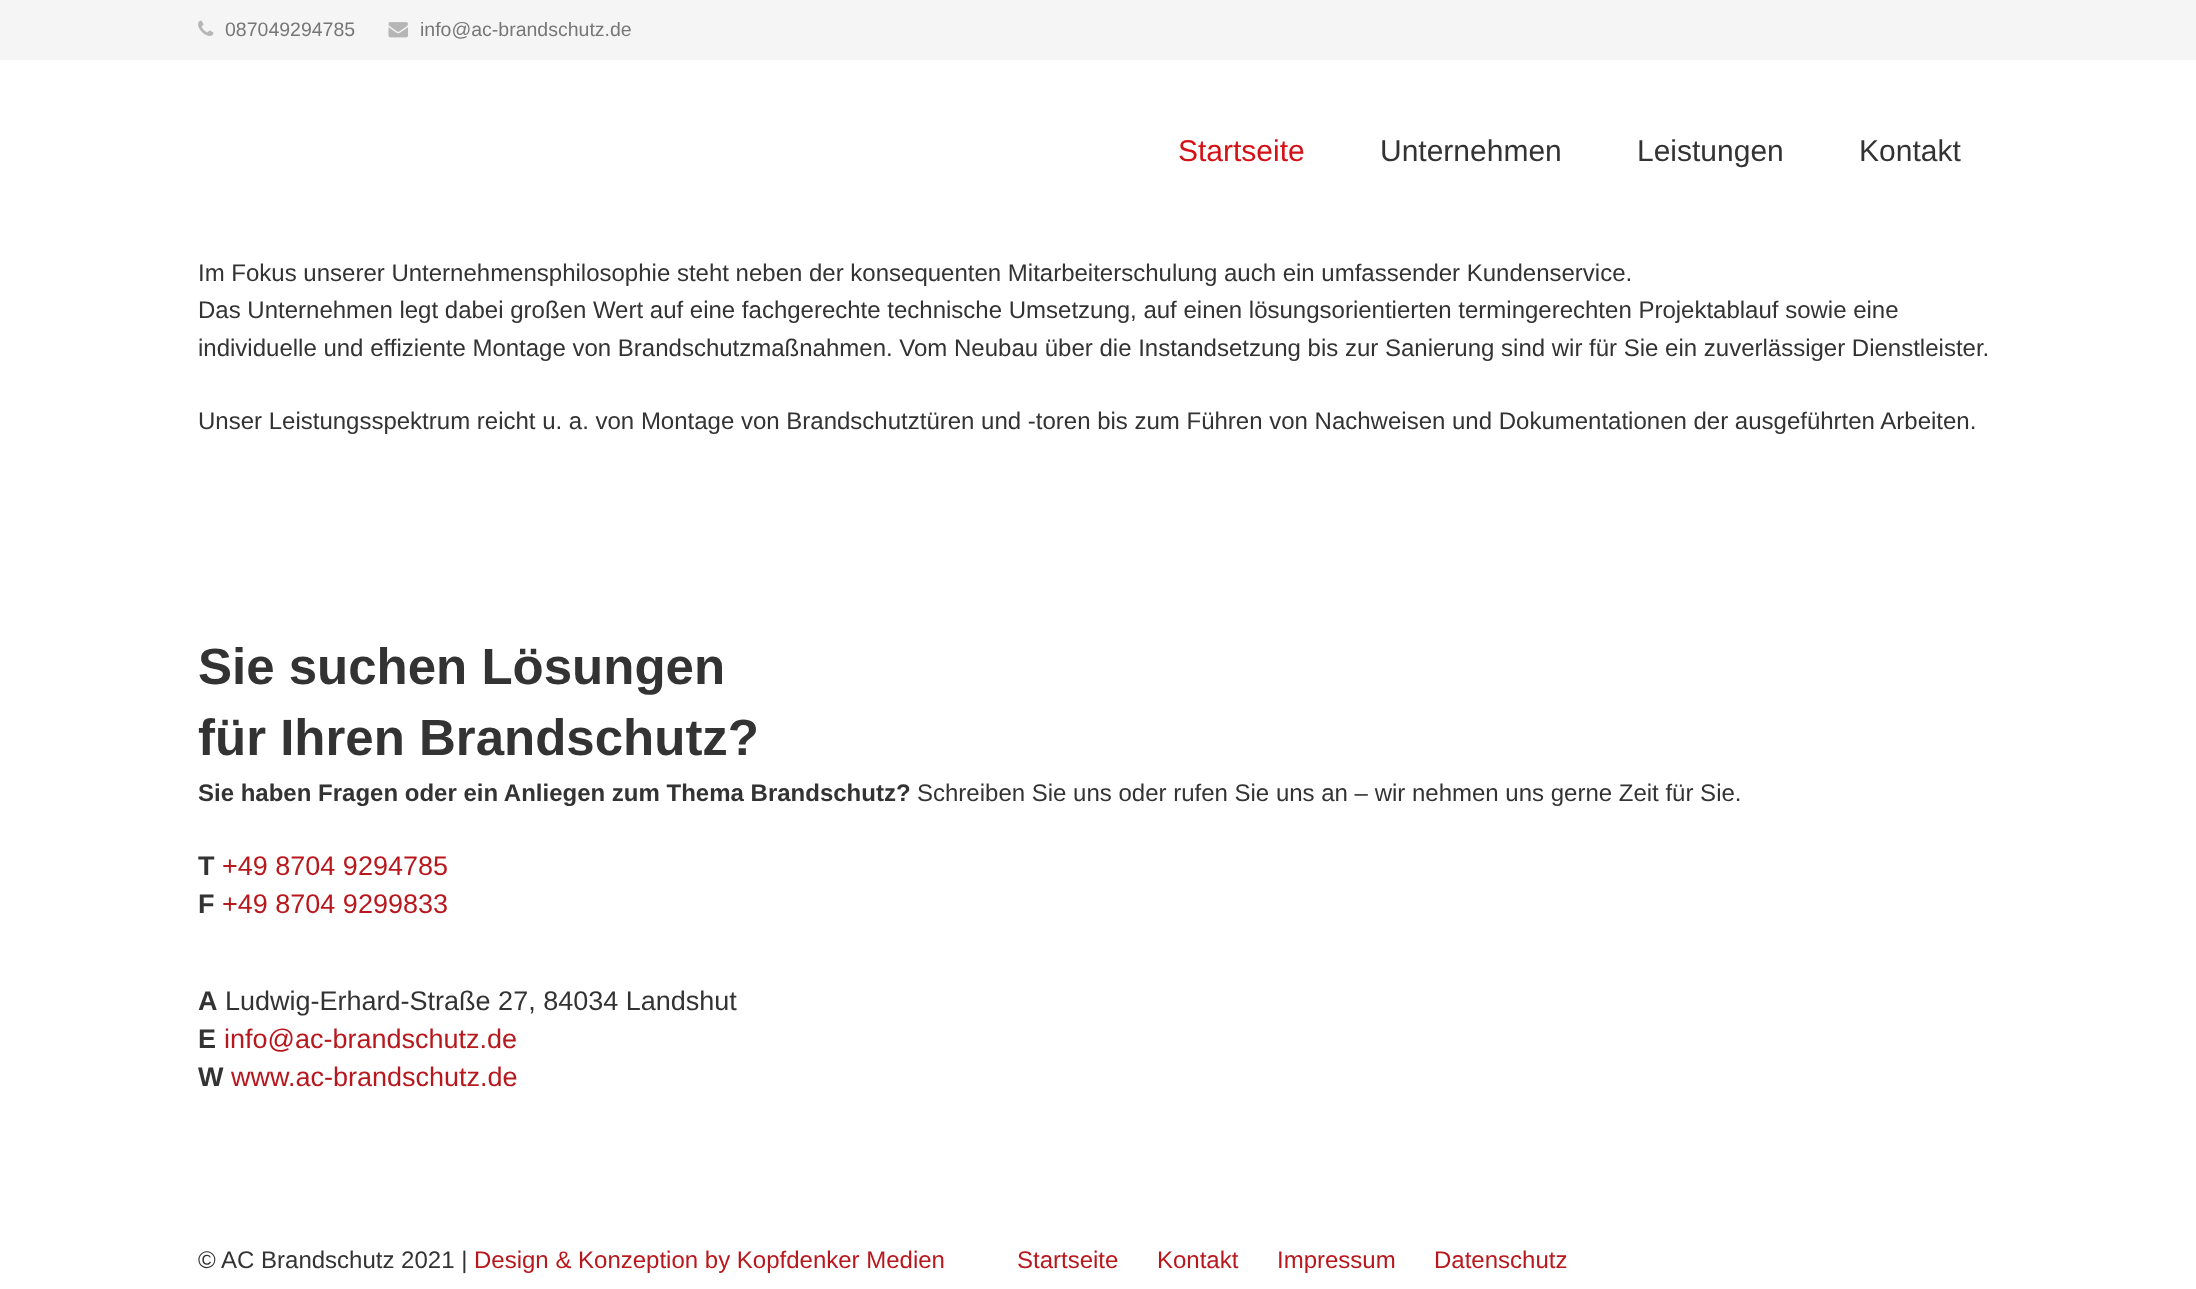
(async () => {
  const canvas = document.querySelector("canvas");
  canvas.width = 2196;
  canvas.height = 1289;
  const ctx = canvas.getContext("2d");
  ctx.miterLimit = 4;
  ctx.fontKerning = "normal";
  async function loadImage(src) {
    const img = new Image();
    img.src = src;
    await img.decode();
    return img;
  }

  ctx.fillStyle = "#ffffff";
  ctx.fillRect(0, 0, 2196, 1289);
  ctx.fillStyle = "#f5f5f5";
  ctx.fillRect(0, 0, 2196, 60);
  ctx.drawImage(await loadImage("img/1.png"), 198, 20, 16, 16);
  ctx.drawImage(await loadImage("img/2.png"), 388, 22, 20, 16);
  ctx.font = "19.5px Liberation Sans";
  ctx.fillStyle = "#777777";
  ctx.fillText("087049294785", 225, 36);
  ctx.fillText("info@ac-brandschutz.de", 420, 36);
  ctx.font = "30px Liberation Sans";
  ctx.fillStyle = "#d41116";
  ctx.fillText("Startseite", 1178, 161);
  ctx.fillStyle = "#333333";
  for (const [text, x, y] of [
    ["Unternehmen", 1380, 161],
    ["Leistungen", 1637, 161],
    ["Kontakt", 1859, 161],
  ]) {
    ctx.fillText(text, x, y);
  }
  ctx.font = "24px Liberation Sans";
  for (const [text, x, y] of [
    ["Im Fokus unserer Unternehmensphilosophie steht neben der konsequenten Mitarbeiterschulung auch ein umfassender Kundenservice.", 198, 281],
    ["Das Unternehmen legt dabei großen Wert auf eine fachgerechte technische Umsetzung, auf einen lösungsorientierten termingerechten Projektablauf sowie eine", 198, 318],
    ["individuelle und effiziente Montage von Brandschutzmaßnahmen. Vom Neubau über die Instandsetzung bis zur Sanierung sind wir für Sie ein zuverlässiger Dienstleister.", 198, 356],
    ["Unser Leistungsspektrum reicht u. a. von Montage von Brandschutztüren und -toren bis zum Führen von Nachweisen und Dokumentationen der ausgeführten Arbeiten.", 198, 429],
  ]) {
    ctx.fillText(text, x, y);
  }
  ctx.font = "bold 51px Liberation Sans";
  ctx.fillText("Sie suchen Lösungen", 198, 684);
  ctx.fillText("für Ihren Brandschutz?", 198, 755);
  ctx.font = "bold 24px Liberation Sans";
  ctx.fillText("Sie haben Fragen oder ein Anliegen zum Thema Brandschutz?", 198, 801);
  ctx.font = "24px Liberation Sans";
  ctx.fillText("Schreiben Sie uns oder rufen Sie uns an – wir nehmen uns gerne Zeit für Sie.", 917, 801);
  ctx.font = "bold 27px Liberation Sans";
  ctx.fillText("T", 198, 875);
  ctx.font = "27px Liberation Sans";
  ctx.fillStyle = "#b8181d";
  ctx.fillText("+49 8704 9294785", 222, 875);
  ctx.font = "bold 27px Liberation Sans";
  ctx.fillStyle = "#333333";
  ctx.fillText("F", 198, 913);
  ctx.font = "27px Liberation Sans";
  ctx.fillStyle = "#b8181d";
  ctx.fillText("+49 8704 9299833", 222, 913);
  ctx.font = "bold 27px Liberation Sans";
  ctx.fillStyle = "#333333";
  ctx.fillText("A", 198, 1010);
  ctx.font = "27px Liberation Sans";
  ctx.fillText("Ludwig-Erhard-Straße 27, 84034 Landshut", 225, 1010);
  ctx.font = "bold 27px Liberation Sans";
  ctx.fillText("E", 198, 1048);
  ctx.font = "27px Liberation Sans";
  ctx.fillStyle = "#b8181d";
  ctx.fillText("info@ac-brandschutz.de", 224, 1048);
  ctx.font = "bold 27px Liberation Sans";
  ctx.fillStyle = "#333333";
  ctx.fillText("W", 198, 1086);
  ctx.font = "27px Liberation Sans";
  ctx.fillStyle = "#b8181d";
  ctx.fillText("www.ac-brandschutz.de", 231, 1086);
  ctx.font = "24px Liberation Sans";
  ctx.fillStyle = "#333333";
  ctx.fillText("© AC Brandschutz 2021 |", 198, 1268);
  ctx.fillStyle = "#b8181d";
  for (const [text, x, y] of [
    ["Design & Konzeption by Kopfdenker Medien", 474, 1268],
    ["Startseite", 1017, 1268],
    ["Kontakt", 1157, 1268],
    ["Impressum", 1277, 1268],
    ["Datenschutz", 1434, 1268],
  ]) {
    ctx.fillText(text, x, y);
  }
})();
